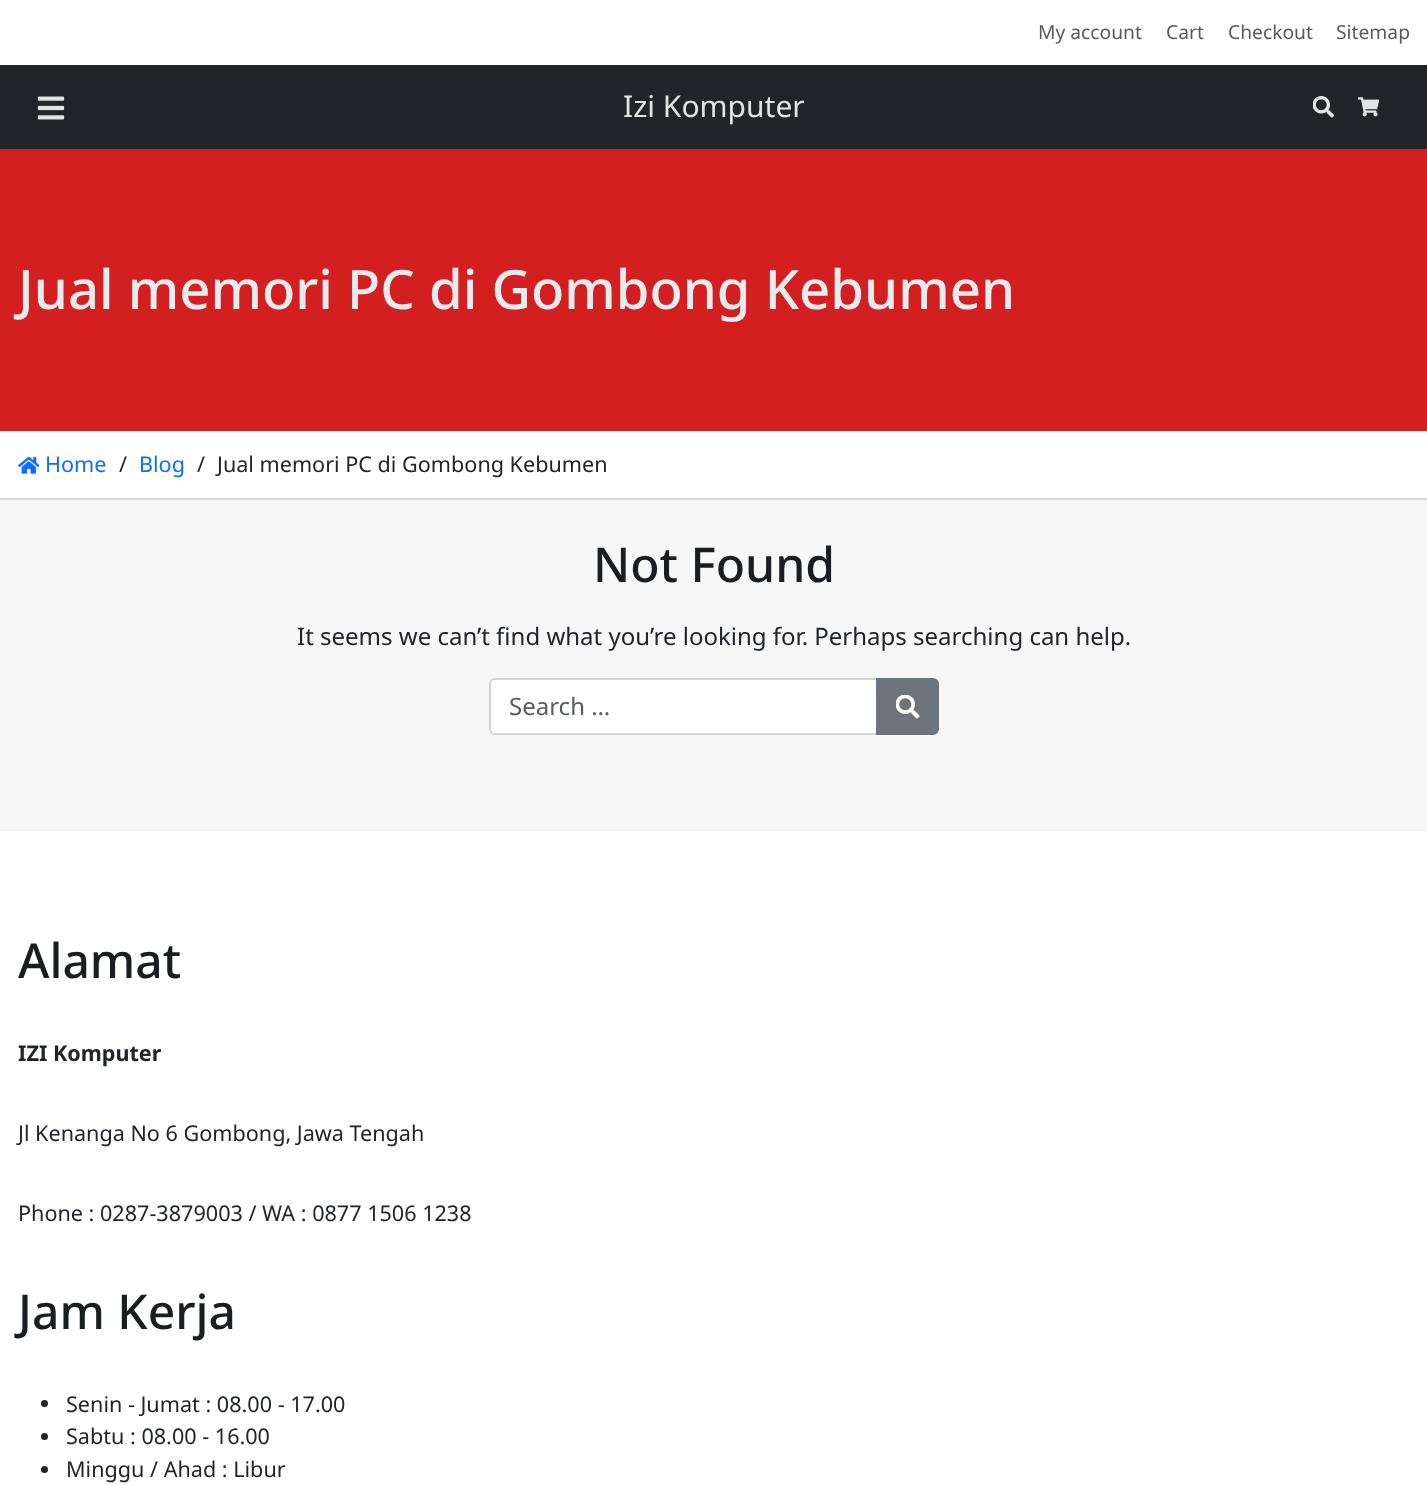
(async () => {
  const canvas = document.querySelector("canvas");
  canvas.width = 1427;
  canvas.height = 1485;
  const ctx = canvas.getContext("2d");
  ctx.miterLimit = 4;
  ctx.fontKerning = "normal";
  async function loadImage(src) {
    const img = new Image();
    img.src = src;
    await img.decode();
    return img;
  }

  ctx.fillStyle = "#f7f7f7";
  ctx.fillRect(0, 0, 1427, 1485);
  ctx.fillStyle = "#ffffff";
  ctx.fillRect(0, 0, 1427, 65);
  ctx.fillStyle = "#212529";
  ctx.fillRect(0, 65, 1427, 84);
  ctx.drawImage(await loadImage("img/1.png"), 37, 96, 28, 24);
  ctx.drawImage(await loadImage("img/2.png"), 1313, 96, 21, 22);
  ctx.drawImage(await loadImage("img/3.png"), 1358, 97, 22, 20);
  for (const [x, y, w, h, color] of [
    [0, 149, 1427, 282, "#d31f1f"],
    [0, 431, 1427, 67, "#ffffff"],
    [0, 498, 1427, 2, "#d9d9d9"],
  ]) {
    ctx.fillStyle = color;
    ctx.fillRect(x, y, w, h);
  }
  ctx.drawImage(await loadImage("img/4.png"), 18, 456, 21, 18);
  ctx.fillStyle = "#ffffff";
  ctx.beginPath();
  ctx.roundRect(491, 680, 385, 54, [5, 0, 0, 5]);
  ctx.fill();
  ctx.beginPath();
  ctx.roundRect(490, 679, 387, 55, [5, 0, 0, 5]);
  ctx.strokeStyle = "rgba(0, 0, 0, 0.15)";
  ctx.lineWidth = 2;
  ctx.stroke();
  ctx.fillStyle = "#6c757d";
  ctx.beginPath();
  ctx.roundRect(877, 679, 61, 55, [0, 5, 5, 0]);
  ctx.fill();
  ctx.strokeStyle = "#6c757d";
  ctx.stroke();
  ctx.drawImage(await loadImage("img/5.png"), 896, 695, 24, 24);
  ctx.fillStyle = "#ffffff";
  ctx.fillRect(0, 831, 1427, 654);
  ctx.fillStyle = "#212529";
  ctx.beginPath();
  ctx.arc(44.5, 1403.5, 3.5, 0, Math.PI * 2);
  ctx.fill();
  ctx.beginPath();
  ctx.arc(44.5, 1436.5, 3.5, 0, Math.PI * 2);
  ctx.fill();
  ctx.beginPath();
  ctx.arc(44.5, 1469.5, 3.5, 0, Math.PI * 2);
  ctx.fill();
  ctx.font = "19.25px Noto Sans";
  ctx.fillStyle = "#595c5f";
  for (const [text, x, y] of [
    ["My account", 1038, 39],
    ["Cart", 1166, 39],
    ["Checkout", 1228, 39],
    ["Sitemap", 1336, 39],
  ]) {
    ctx.fillText(text, x, y);
  }
  ctx.font = "30px Noto Sans";
  ctx.fillStyle = "#e3e3e3";
  ctx.fillText("Izi Komputer", 623, 117);
  ctx.font = "500 54.4px Noto Sans";
  ctx.fillStyle = "#e8ebee";
  ctx.fillText("Jual memori PC di Gombong Kebumen", 18, 309);
  ctx.font = "21.6px Noto Sans";
  ctx.fillStyle = "#0d6efd";
  ctx.fillText("Home", 45, 472);
  ctx.fillStyle = "#212529";
  ctx.fillText("/", 119, 472);
  ctx.fillStyle = "#0d6efd";
  ctx.fillText("Blog", 139, 472);
  ctx.fillStyle = "#212529";
  ctx.fillText("/", 197, 472);
  ctx.fillText("Jual memori PC di Gombong Kebumen", 217, 472);
  ctx.font = "500 48px Noto Sans";
  ctx.fillStyle = "#1a1e21";
  ctx.fillText("Not Found", 593, 582);
  ctx.font = "24px Noto Sans";
  ctx.fillStyle = "#212529";
  ctx.fillText("It seems we can’t find what you’re looking for. Perhaps searching can help.", 297, 645);
  ctx.fillStyle = "#595c5f";
  ctx.fillText("Search …", 509, 715);
  ctx.font = "500 48px Noto Sans";
  ctx.fillStyle = "#1a1e21";
  ctx.fillText("Alamat", 18, 978);
  ctx.font = "bold 21.6px Noto Sans";
  ctx.fillStyle = "#212529";
  ctx.fillText("IZI Komputer", 18, 1061);
  ctx.font = "21.6px Noto Sans";
  ctx.fillText("Jl Kenanga No 6 Gombong, Jawa Tengah", 18, 1141);
  ctx.fillText("Phone : 0287-3879003 / WA : 0877 1506 1238", 18, 1221);
  ctx.font = "500 48px Noto Sans";
  ctx.fillStyle = "#1a1e21";
  ctx.fillText("Jam Kerja", 18, 1329);
  ctx.font = "21.6px Noto Sans";
  ctx.fillStyle = "#212529";
  for (const [text, x, y] of [
    ["Senin - Jumat : 08.00 - 17.00", 66, 1412],
    ["Sabtu : 08.00 - 16.00", 66, 1444],
    ["Minggu / Ahad : Libur", 66, 1477],
  ]) {
    ctx.fillText(text, x, y);
  }
})();
